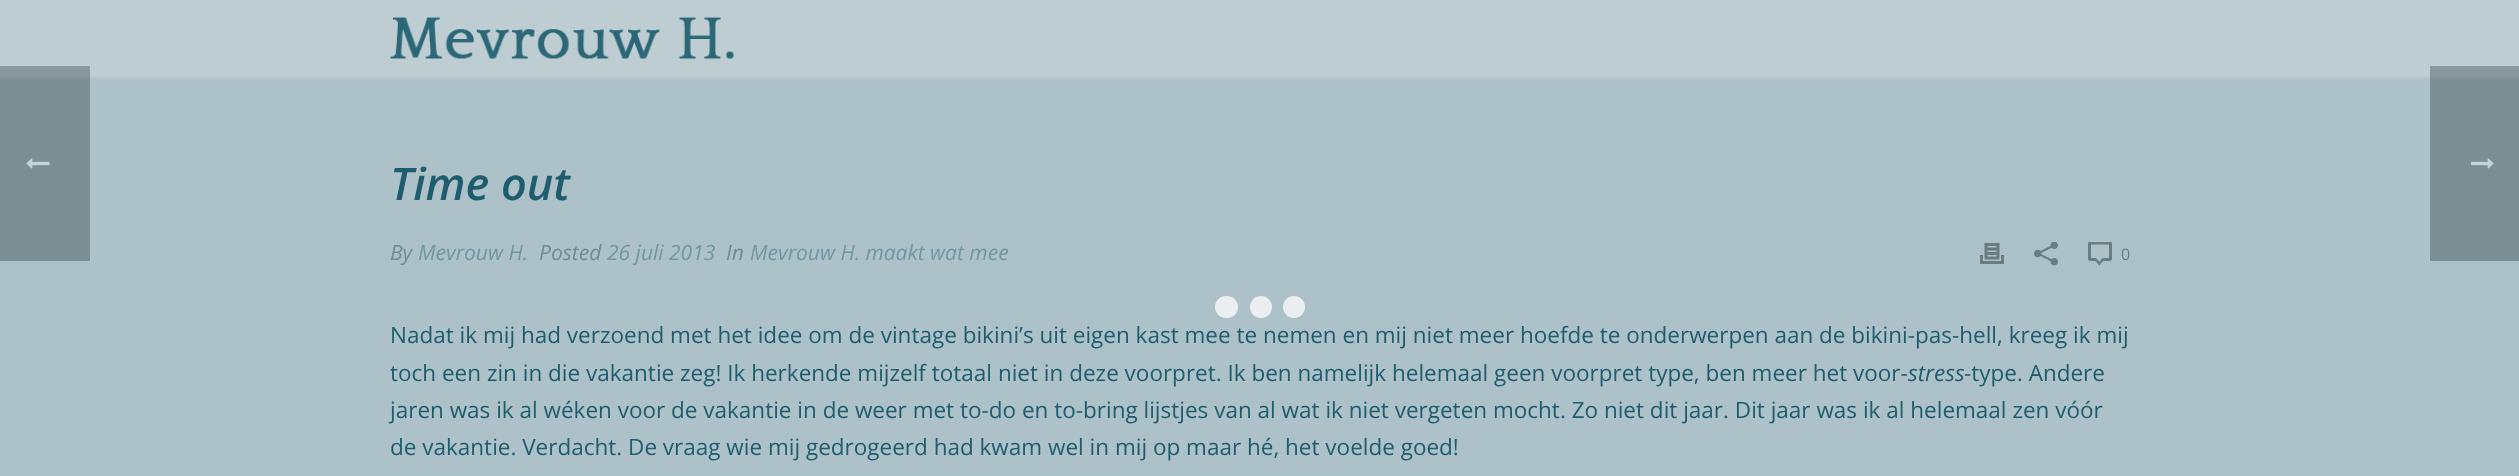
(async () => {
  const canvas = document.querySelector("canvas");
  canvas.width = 2519;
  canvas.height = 476;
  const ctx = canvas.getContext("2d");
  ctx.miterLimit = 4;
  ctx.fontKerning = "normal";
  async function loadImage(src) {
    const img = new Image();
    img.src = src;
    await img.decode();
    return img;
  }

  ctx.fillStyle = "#adc2c8";
  ctx.fillRect(0, 0, 2519, 476);
  ctx.fillStyle = "#7c8f95";
  ctx.fillRect(0, 79, 90, 182);
  ctx.drawImage(await loadImage("img/1.png"), 26, 158, 24, 11);
  ctx.fillRect(2430, 79, 89, 182);
  ctx.drawImage(await loadImage("img/2.png"), 2471, 158, 23, 11);
  for (const [x, y, w, h, color] of [
    [0, 0, 2519, 77, "#bdcdd2"],
    [2430, 66, 89, 11, "#87979c"],
    [0, 66, 90, 11, "#87979c"],
    [90, 77, 2340, 2, "#b5c6ca"],
    [2430, 77, 89, 2, "#829297"],
    [0, 77, 90, 2, "#829297"],
  ]) {
    ctx.fillStyle = color;
    ctx.fillRect(x, y, w, h);
  }
  ctx.drawImage(await loadImage("img/3.png"), 390, 17, 344, 42);
  ctx.drawImage(await loadImage("img/4.png"), 1980, 243, 24, 21);
  ctx.drawImage(await loadImage("img/5.png"), 2034, 242, 24, 24);
  ctx.drawImage(await loadImage("img/6.png"), 2088, 242, 24, 24);
  ctx.fillStyle = "#eaeef0";
  ctx.beginPath();
  ctx.roundRect(1215, 296, 23, 22, 11);
  ctx.fill();
  ctx.beginPath();
  ctx.arc(1261, 307, 11, 0, Math.PI * 2);
  ctx.fill();
  ctx.beginPath();
  ctx.arc(1294, 307, 11, 0, Math.PI * 2);
  ctx.fill();
  ctx.font = "italic 600 45px Open Sans";
  ctx.fillStyle = "#1f5c6d";
  ctx.fillText("Time out", 390, 200);
  ctx.font = "italic 21px Open Sans";
  ctx.fillStyle = "#78898d";
  ctx.fillText("By", 390, 260);
  ctx.fillStyle = "#7197a2";
  ctx.fillText("Mevrouw H.", 418, 260);
  ctx.fillStyle = "#78898d";
  ctx.fillText("Posted", 539, 260);
  ctx.fillStyle = "#7197a2";
  ctx.fillText("26 juli 2013", 607, 260);
  ctx.fillStyle = "#78898d";
  ctx.fillText("In", 726, 260);
  ctx.fillStyle = "#7197a2";
  ctx.fillText("Mevrouw H. maakt wat mee", 750, 260);
  ctx.font = "16px Open Sans";
  ctx.fillStyle = "#6c7d81";
  ctx.fillText("0", 2121, 260);
  ctx.font = "22.5px Open Sans";
  ctx.fillStyle = "#1f5c6d";
  ctx.fillText("Nadat ik mij had verzoend met het idee om de vintage bikini’s uit eigen kast mee te nemen en mij niet meer hoefde te onderwerpen aan de bikini-pas-hell, kreeg ik mij", 390, 343);
  ctx.fillText("toch een zin in die vakantie zeg! Ik herkende mijzelf totaal niet in deze voorpret. Ik ben namelijk helemaal geen voorpret type, ben meer het voor-", 390, 381);
  ctx.font = "italic 22.5px Open Sans";
  ctx.fillText("stress", 1908, 381);
  ctx.font = "22.5px Open Sans";
  for (const [text, x, y] of [
    ["-type. Andere", 1964, 381],
    ["jaren was ik al wéken voor de vakantie in de weer met to-do en to-bring lijstjes van al wat ik niet vergeten mocht. Zo niet dit jaar. Dit jaar was ik al helemaal zen vóór", 390, 418],
    ["de vakantie. Verdacht. De vraag wie mij gedrogeerd had kwam wel in mij op maar hé, het voelde goed!", 390, 455],
  ]) {
    ctx.fillText(text, x, y);
  }
})();
